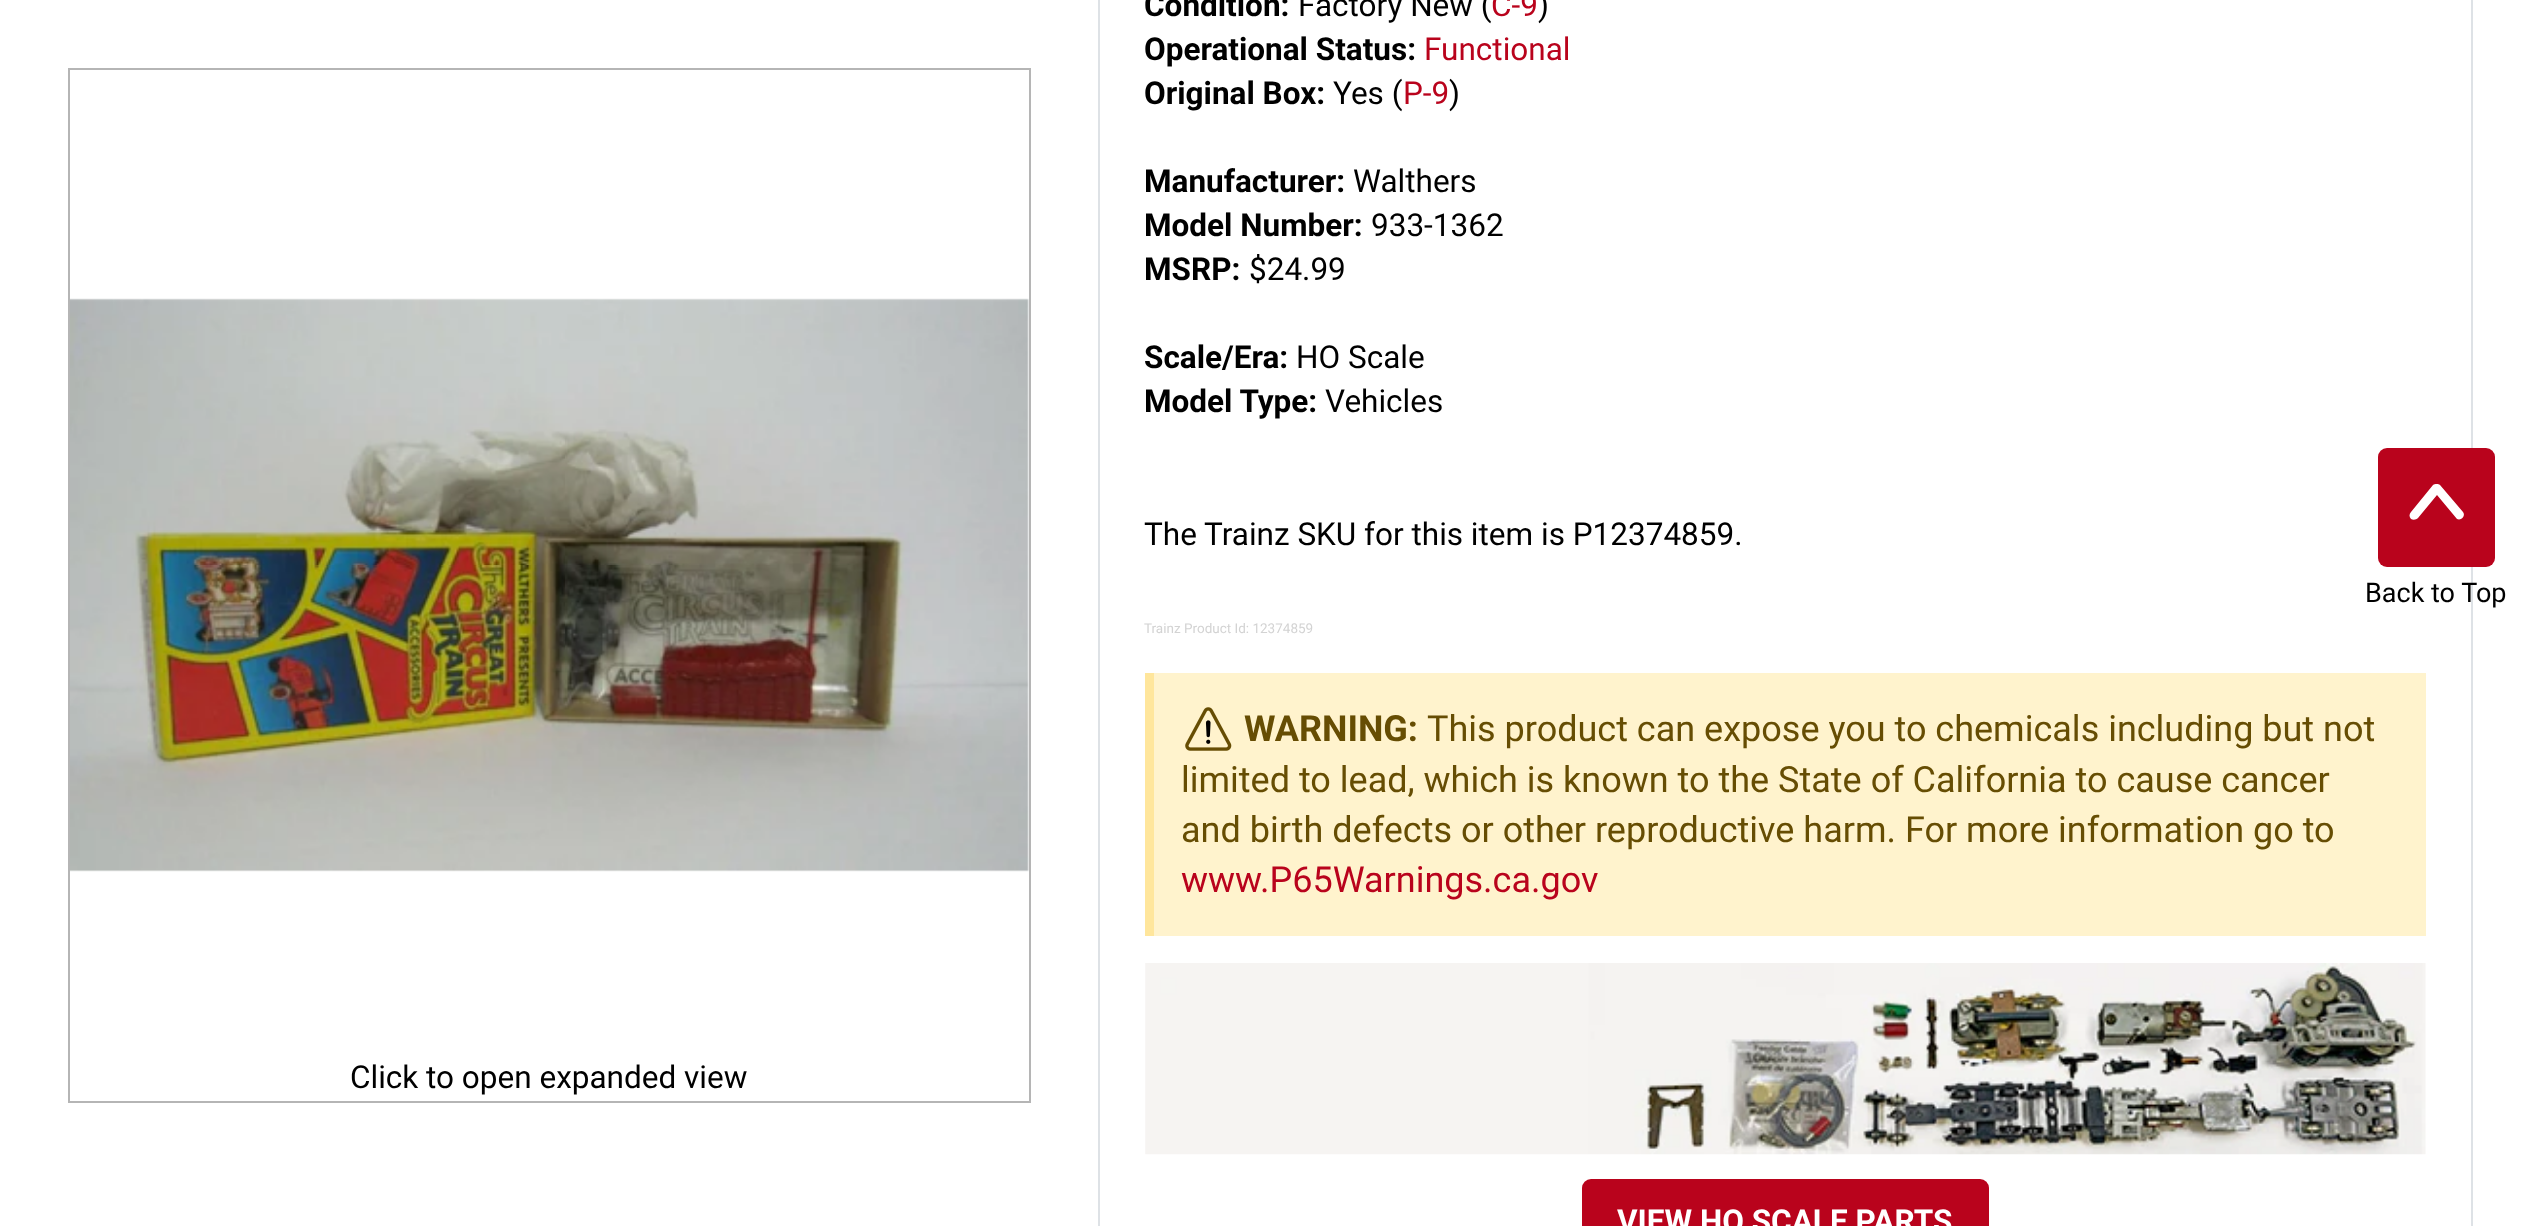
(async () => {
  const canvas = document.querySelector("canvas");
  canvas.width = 2539;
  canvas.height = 1226;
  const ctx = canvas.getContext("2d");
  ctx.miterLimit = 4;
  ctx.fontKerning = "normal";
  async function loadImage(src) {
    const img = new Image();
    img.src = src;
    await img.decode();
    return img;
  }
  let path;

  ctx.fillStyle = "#ffffff";
  ctx.fillRect(0, 0, 2539, 1226);
  ctx.strokeStyle = "#b5b5b5";
  ctx.lineWidth = 2;
  ctx.strokeRect(69, 69, 961, 1033);
  ctx.drawImage(await loadImage("img/1.png"), 70, 298, 959, 574);
  for (const [x, y, w, h, color] of [
    [2471, 0, 2, 1226, "#dee2e6"],
    [1098, 0, 2, 1226, "#dee2e6"],
    [1154, 673, 1272, 263, "#fff3cd"],
    [1145, 673, 9, 263, "#ffe69c"],
  ]) {
    ctx.fillStyle = color;
    ctx.fillRect(x, y, w, h);
  }
  ctx.drawImage(await loadImage("img/2.png"), 1185, 707, 47, 44);
  ctx.drawImage(await loadImage("img/3.png"), 1145, 963, 1281, 192);
  ctx.fillStyle = "#b9031c";
  ctx.beginPath();
  ctx.roundRect(1582, 1179, 407, 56, 9);
  ctx.fill();
  ctx.beginPath();
  ctx.roundRect(2378, 448, 117, 119, 9);
  ctx.fill();
  ctx.fillStyle = "#ffffff";
  path = new Path2D("M2463 512L2440 485C2439 484 2438 484 2437 484C2435 484 2434 484 2433 485L2411 512C2409 514 2409 517 2411 519C2413 520 2416 520 2418 518L2437 495L2457 519C2461 521 2466 516 2463 512Z");
  ctx.fill(path);
  ctx.font = "31.5px Roboto";
  ctx.fillStyle = "#000000";
  ctx.fillText("Click to open expanded view", 350, 1088);
  ctx.font = "bold 31.5px Roboto";
  ctx.fillText("Condition:", 1144, 16);
  ctx.font = "31.5px Roboto";
  ctx.fillText("Factory New (", 1298, 16);
  ctx.fillStyle = "#b9031c";
  ctx.fillText("C-9", 1491, 16);
  ctx.fillStyle = "#000000";
  ctx.fillText(")", 1538, 16);
  ctx.font = "bold 31.5px Roboto";
  ctx.fillText("Operational Status:", 1144, 60);
  ctx.font = "31.5px Roboto";
  ctx.fillStyle = "#b9031c";
  ctx.fillText("Functional", 1424, 60);
  ctx.font = "bold 31.5px Roboto";
  ctx.fillStyle = "#000000";
  ctx.fillText("Original Box:", 1144, 104);
  ctx.font = "31.5px Roboto";
  ctx.fillText("Yes (", 1333, 104);
  ctx.fillStyle = "#b9031c";
  ctx.fillText("P-9", 1403, 104);
  ctx.fillStyle = "#000000";
  ctx.fillText(")", 1449, 104);
  ctx.font = "bold 31.5px Roboto";
  ctx.fillText("Manufacturer:", 1144, 192);
  ctx.font = "31.5px Roboto";
  ctx.fillText("Walthers", 1353, 192);
  ctx.font = "bold 31.5px Roboto";
  ctx.fillText("Model Number:", 1144, 236);
  ctx.font = "31.5px Roboto";
  ctx.fillText("933-1362", 1371, 236);
  ctx.font = "bold 31.5px Roboto";
  ctx.fillText("MSRP:", 1144, 280);
  ctx.font = "31.5px Roboto";
  ctx.fillText("$24.99", 1249, 280);
  ctx.font = "bold 31.5px Roboto";
  ctx.fillText("Scale/Era:", 1144, 368);
  ctx.font = "31.5px Roboto";
  ctx.fillText("HO Scale", 1296, 368);
  ctx.font = "bold 31.5px Roboto";
  ctx.fillText("Model Type:", 1144, 412);
  ctx.font = "31.5px Roboto";
  ctx.fillText("Vehicles", 1325, 412);
  ctx.fillText("The Trainz SKU for this item is P12374859.", 1144, 545);
  ctx.font = "13.5px Roboto";
  ctx.fillStyle = "#d3d3d3";
  ctx.fillText("Trainz Product Id: 12374859", 1144, 633);
  ctx.font = "bold 36px Roboto";
  ctx.fillStyle = "#664d03";
  ctx.fillText("WARNING:", 1244, 741);
  ctx.font = "36px Roboto";
  for (const [text, x, y] of [
    ["This product can expose you to chemicals including but not", 1427, 741],
    ["limited to lead, which is known to the State of California to cause cancer", 1181, 792],
    ["and birth defects or other reproductive harm. For more information go to", 1181, 842],
  ]) {
    ctx.fillText(text, x, y);
  }
  ctx.fillStyle = "#b9031c";
  ctx.fillText("www.P65Warnings.ca.gov", 1181, 892);
  ctx.font = "bold 31.5px Roboto";
  ctx.fillStyle = "#ffffff";
  ctx.fillText("VIEW HO SCALE PARTS", 1617, 1232);
  ctx.font = "27px Roboto";
  ctx.fillStyle = "#000000";
  ctx.fillText("Back to Top", 2365, 602);
})();
